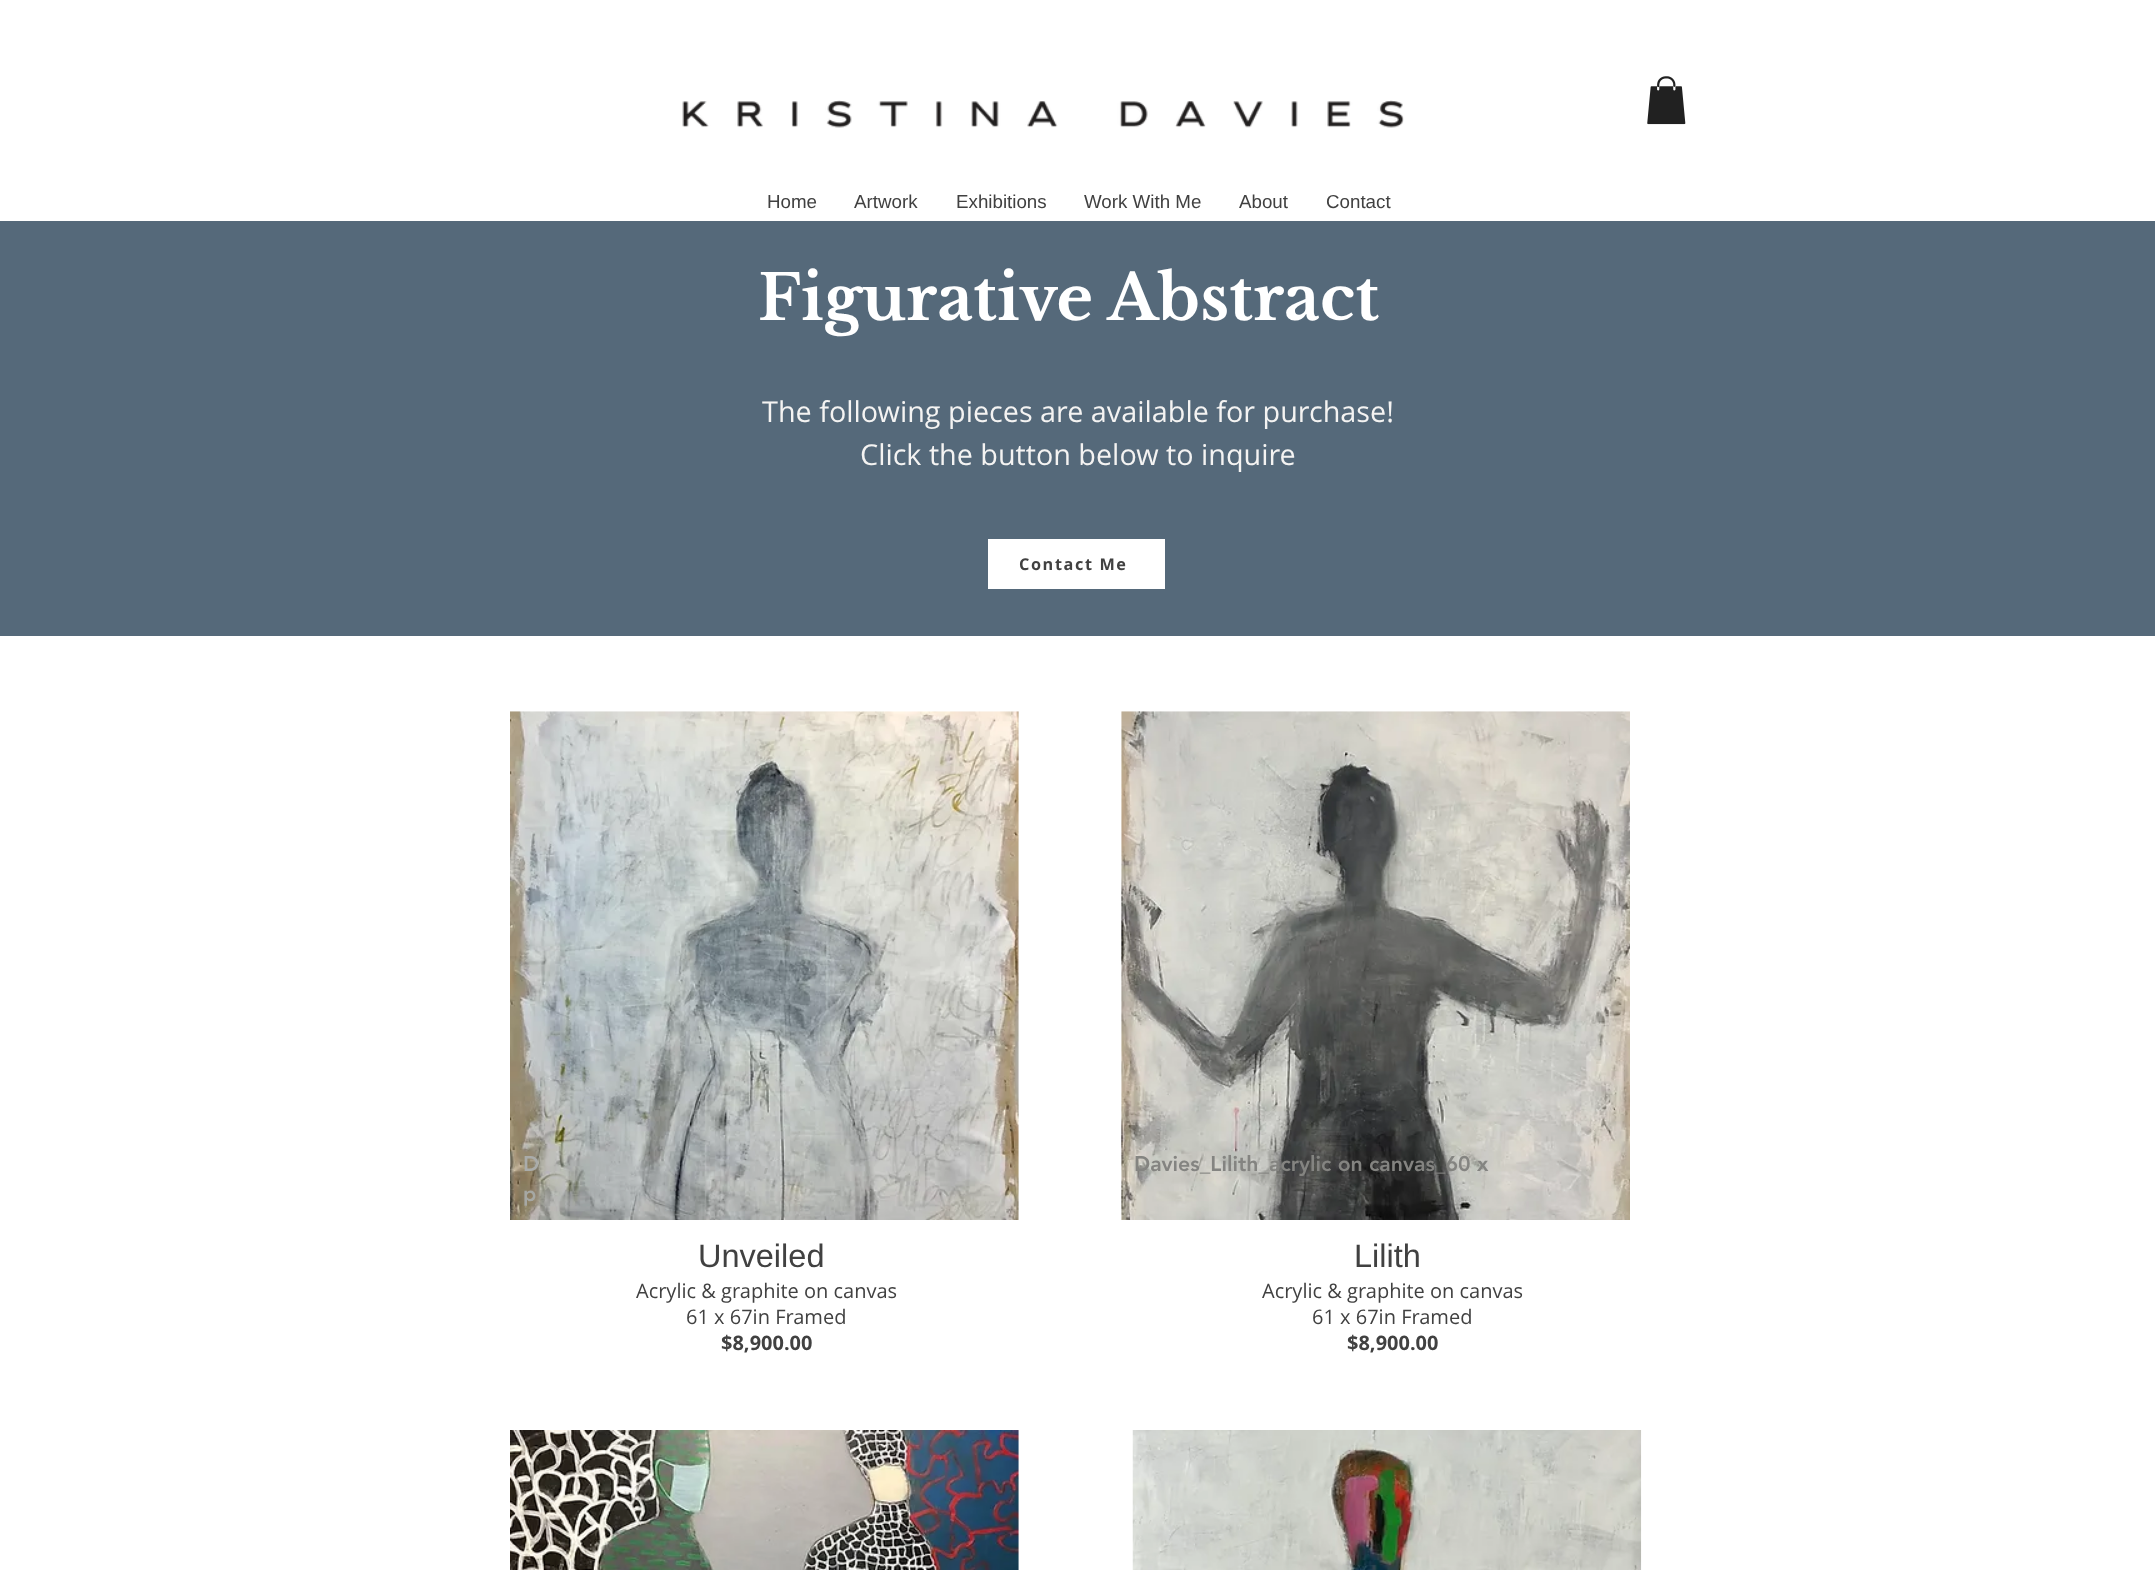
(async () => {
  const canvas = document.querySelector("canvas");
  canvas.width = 2155;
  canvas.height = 1570;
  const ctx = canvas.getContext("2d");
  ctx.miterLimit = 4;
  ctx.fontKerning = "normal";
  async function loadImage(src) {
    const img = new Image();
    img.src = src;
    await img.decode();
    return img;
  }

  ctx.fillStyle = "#ffffff";
  ctx.fillRect(0, 0, 2155, 1570);
  ctx.drawImage(await loadImage("img/1.png"), 682, 100, 722, 28);
  ctx.drawImage(await loadImage("img/2.png"), 1647, 76, 39, 49);
  ctx.fillStyle = "#55697a";
  ctx.fillRect(0, 221, 2155, 415);
  ctx.fillStyle = "#ffffff";
  ctx.fillRect(988, 539, 177, 50);
  ctx.drawImage(await loadImage("img/3.png"), 510, 711, 509, 509);
  ctx.drawImage(await loadImage("img/4.png"), 1121, 711, 509, 509);
  ctx.drawImage(await loadImage("img/5.png"), 510, 1430, 509, 140);
  ctx.drawImage(await loadImage("img/6.png"), 1132, 1430, 510, 140);
  ctx.font = "18.75px Liberation Sans";
  ctx.fillStyle = "#414141";
  for (const [text, x, y] of [
    ["Home", 767, 208],
    ["Artwork", 854, 208],
    ["Exhibitions", 956, 208],
    ["Work With Me", 1084, 208],
    ["About", 1239, 208],
    ["Contact", 1326, 208],
  ]) {
    ctx.fillText(text, x, y);
  }
  ctx.font = "bold 62.5px Libre Baskerville";
  ctx.fillStyle = "#ffffff";
  ctx.fillText("Figurative Abstract", 758, 320);
  ctx.font = "28.75px Open Sans";
  ctx.fillStyle = "#f4f3f2";
  ctx.fillText("The following pieces are available for purchase!", 762, 422);
  ctx.fillText("Click the button below to inquire", 860, 465);
  ctx.letterSpacing = "1.6px";
  ctx.font = "bold 16.25px Open Sans";
  ctx.fillStyle = "#414141";
  ctx.fillText("Contact Me", 1019, 570);
  ctx.letterSpacing = "0px";
  ctx.font = "900 21.25px 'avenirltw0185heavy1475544'";
  ctx.fillStyle = "#aaacaa";
  ctx.fillText("D", 523, 1171);
  ctx.fillText(",", 763, 1171);
  ctx.fillStyle = "#a6a8a4";
  ctx.fillText("p", 523, 1201);
  ctx.fillStyle = "#848481";
  ctx.fillText("Davies_Lilith_acrylic on canvas_60 x", 1134, 1171);
  ctx.font = "32.5px Liberation Sans";
  ctx.fillStyle = "#414141";
  ctx.fillText("Unveiled", 698, 1267);
  ctx.fillText("Lilith", 1354, 1267);
  ctx.font = "20px Open Sans";
  ctx.fillText("Acrylic & graphite on canvas", 636, 1298);
  ctx.fillText("61 x 67in Framed", 686, 1324);
  ctx.font = "bold 20px Open Sans";
  ctx.fillText("$8,900.00", 721, 1350);
  ctx.font = "20px Open Sans";
  ctx.fillText("Acrylic & graphite on canvas", 1262, 1298);
  ctx.fillText("61 x 67in Framed", 1312, 1324);
  ctx.font = "bold 20px Open Sans";
  ctx.fillText("$8,900.00", 1347, 1350);
})();
